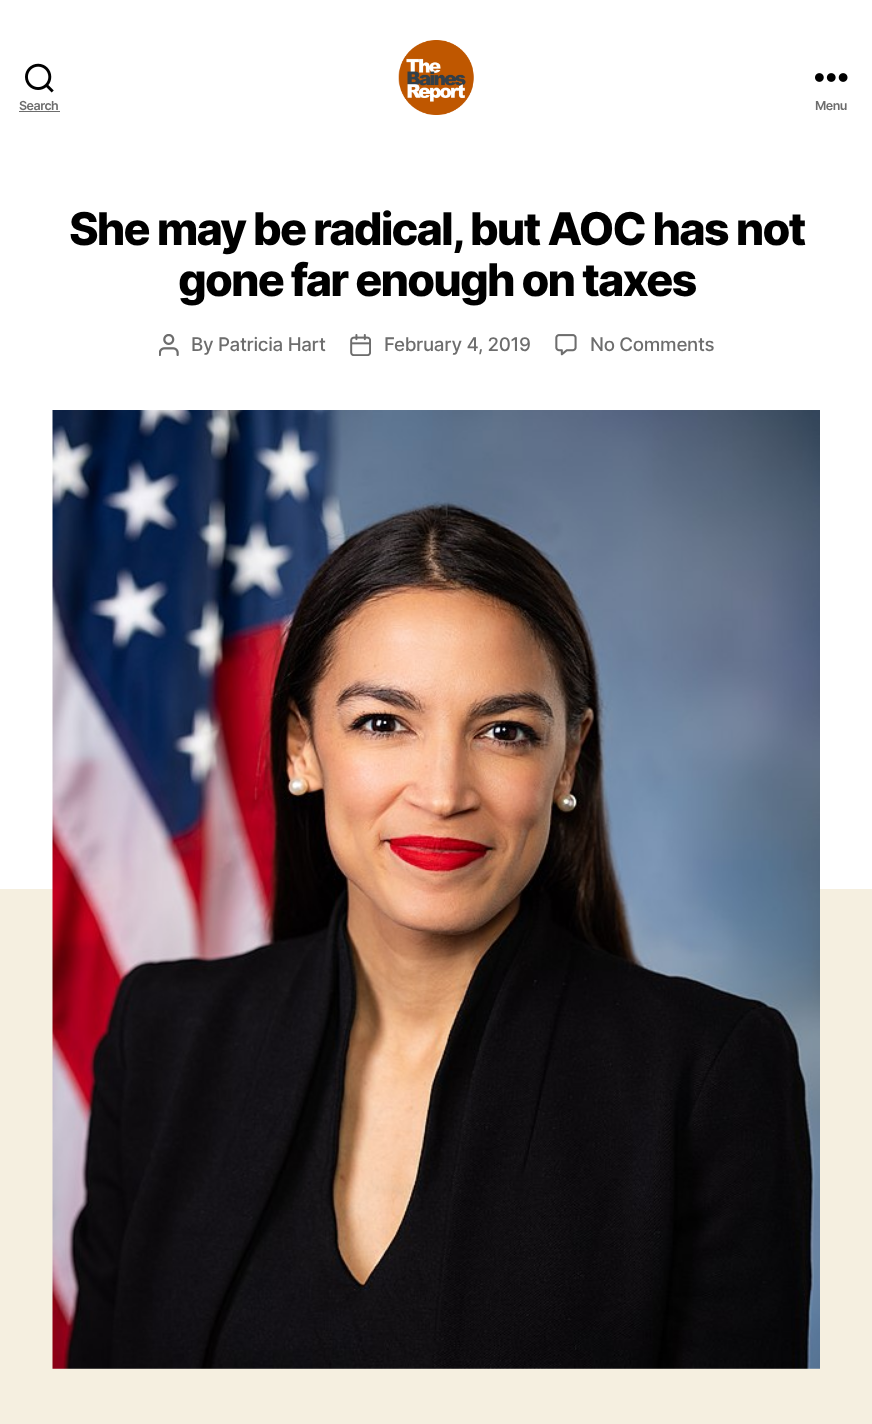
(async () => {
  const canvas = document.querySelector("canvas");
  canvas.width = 872;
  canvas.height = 1424;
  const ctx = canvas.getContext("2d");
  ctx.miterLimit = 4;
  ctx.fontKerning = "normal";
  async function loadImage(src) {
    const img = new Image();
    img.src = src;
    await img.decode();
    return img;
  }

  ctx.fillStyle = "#f5efe0";
  ctx.fillRect(0, 0, 872, 1424);
  ctx.fillStyle = "#ffffff";
  ctx.fillRect(0, 0, 872, 889);
  ctx.drawImage(await loadImage("img/1.png"), 25, 63, 29, 30);
  ctx.fillStyle = "#6d6d6d";
  ctx.fillRect(19, 111, 41, 1);
  ctx.drawImage(await loadImage("img/2.png"), 398, 40, 76, 75);
  ctx.drawImage(await loadImage("img/3.png"), 815, 73, 33, 9);
  ctx.drawImage(await loadImage("img/4.png"), 159, 334, 20, 22);
  ctx.drawImage(await loadImage("img/5.png"), 350, 334, 21, 22);
  ctx.drawImage(await loadImage("img/6.png"), 555, 334, 22, 22);
  ctx.drawImage(await loadImage("img/7.png"), 52, 410, 768, 959);
  ctx.letterSpacing = "-0.5px";
  ctx.font = "600 12.5px Inter";
  ctx.fillText("Search", 19, 110);
  ctx.fillText("Menu", 815, 110);
  ctx.letterSpacing = "-1.85px";
  ctx.font = "800 45px Inter";
  ctx.fillStyle = "#000000";
  ctx.fillText("She may be radical, but AOC has not", 69, 245);
  ctx.fillText("gone far enough on taxes", 178, 296);
  ctx.letterSpacing = "-0.3px";
  ctx.font = "500 18.75px Inter";
  ctx.fillStyle = "#6d6d6d";
  for (const [text, x, y] of [
    ["By Patricia Hart", 191, 351],
    ["February 4, 2019", 384, 351],
    ["No Comments", 590, 351],
  ]) {
    ctx.fillText(text, x, y);
  }
})();
